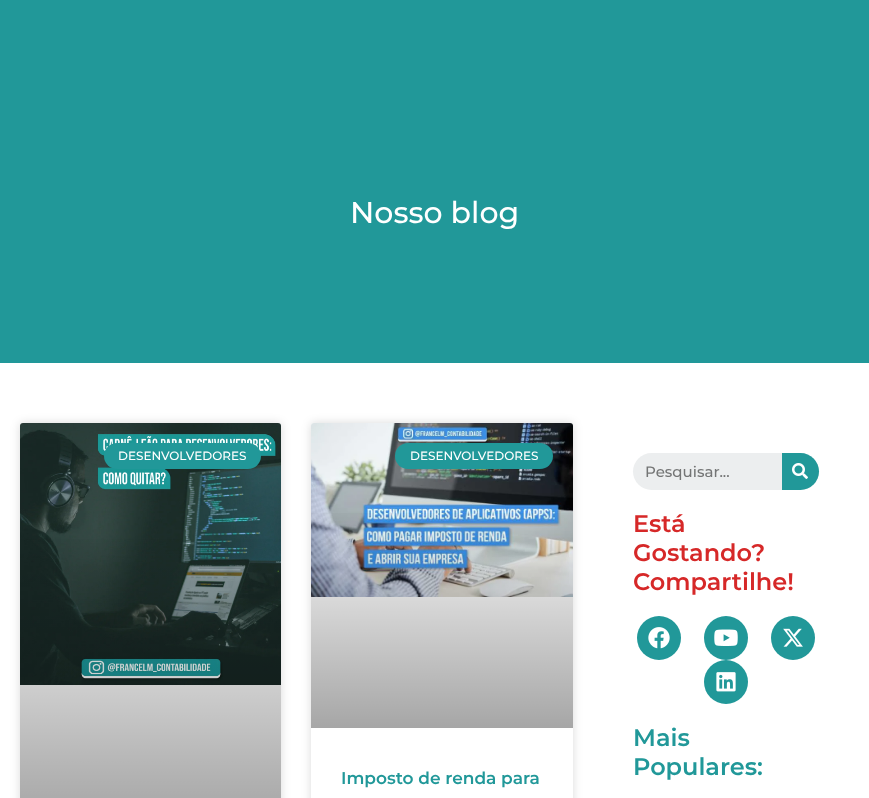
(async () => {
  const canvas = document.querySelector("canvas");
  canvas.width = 869;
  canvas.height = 798;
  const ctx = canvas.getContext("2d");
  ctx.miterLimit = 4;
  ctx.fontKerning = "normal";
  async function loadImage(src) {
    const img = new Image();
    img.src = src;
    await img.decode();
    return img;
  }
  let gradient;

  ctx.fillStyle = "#ffffff";
  ctx.fillRect(0, 0, 869, 798);
  ctx.fillStyle = "#219899";
  ctx.fillRect(0, 0, 869, 363);
  ctx.fillStyle = "rgba(0, 0, 0, 0.15)";
  ctx.filter = "blur(5px)";
  ctx.beginPath();
  ctx.roundRect(20, 423, 261, 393, 3);
  ctx.fill();
  ctx.filter = "none";
  ctx.fillStyle = "#ffffff";
  ctx.beginPath();
  ctx.roundRect(20, 423, 261, 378, 3);
  ctx.fill();
  ctx.drawImage(await loadImage("img/1.png"), 20, 423, 261, 262);
  gradient = ctx.createLinearGradient(151, 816, 151, 423);
  gradient.addColorStop(0, "rgba(0, 0, 0, 0.35)");
  gradient.addColorStop(0.75, "rgba(0, 0, 0, 0)");
  ctx.fillStyle = gradient;
  ctx.fillRect(20, 539, 261, 259);
  ctx.fillStyle = "#219899";
  ctx.beginPath();
  ctx.roundRect(104, 443, 157, 26, 13);
  ctx.fill();
  ctx.fillStyle = "rgba(0, 0, 0, 0.15)";
  ctx.filter = "blur(5px)";
  ctx.beginPath();
  ctx.roundRect(311, 423, 262, 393, 3);
  ctx.fill();
  ctx.filter = "none";
  ctx.fillStyle = "#ffffff";
  ctx.beginPath();
  ctx.roundRect(311, 423, 262, 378, 3);
  ctx.fill();
  ctx.drawImage(await loadImage("img/2.png"), 311, 423, 262, 174);
  gradient = ctx.createLinearGradient(442, 728, 442, 423);
  gradient.addColorStop(0, "rgba(0, 0, 0, 0.35)");
  gradient.addColorStop(0.75, "rgba(0, 0, 0, 0)");
  ctx.fillStyle = gradient;
  ctx.fillRect(311, 513, 262, 215);
  ctx.fillStyle = "#219899";
  ctx.beginPath();
  ctx.roundRect(395, 443, 158, 26, 13);
  ctx.fill();
  ctx.fillStyle = "#eceeef";
  ctx.beginPath();
  ctx.roundRect(633, 453, 186, 37, 18.5);
  ctx.fill();
  ctx.fillStyle = "#219899";
  ctx.beginPath();
  ctx.roundRect(782, 453, 37, 37, [0, 18.5, 18.5, 0]);
  ctx.fill();
  ctx.drawImage(await loadImage("img/3.png"), 792, 463, 16, 16);
  ctx.beginPath();
  ctx.arc(659, 638, 22, 0, Math.PI * 2);
  ctx.fill();
  ctx.drawImage(await loadImage("img/4.png"), 648, 627, 22, 22);
  ctx.beginPath();
  ctx.arc(726, 638, 22, 0, Math.PI * 2);
  ctx.fill();
  ctx.drawImage(await loadImage("img/5.png"), 714, 629, 24, 17);
  ctx.beginPath();
  ctx.arc(793, 638, 22, 0, Math.PI * 2);
  ctx.fill();
  ctx.drawImage(await loadImage("img/6.png"), 783, 628, 20, 19);
  ctx.beginPath();
  ctx.arc(726, 682, 22, 0, Math.PI * 2);
  ctx.fill();
  ctx.drawImage(await loadImage("img/7.png"), 716, 672, 20, 20);
  ctx.font = "500 30px Montserrat";
  ctx.fillStyle = "#ffffff";
  ctx.fillText("Nosso blog", 350, 223);
  ctx.font = "500 12px Montserrat";
  ctx.fillText("DESENVOLVEDORES", 118, 460);
  ctx.fillText("DESENVOLVEDORES", 410, 460);
  ctx.font = "600 17px Montserrat";
  ctx.fillStyle = "#219899";
  ctx.fillText("Imposto de renda para", 341, 784);
  ctx.font = "500 15px Montserrat";
  ctx.fillStyle = "#747575";
  ctx.fillText("Pesquisar...", 645, 477);
  ctx.font = "600 24px Montserrat";
  ctx.fillStyle = "#d62828";
  for (const [text, x, y] of [
    ["Está", 633, 532],
    ["Gostando?", 633, 561],
    ["Compartilhe!", 633, 590],
  ]) {
    ctx.fillText(text, x, y);
  }
  ctx.fillStyle = "#219899";
  ctx.fillText("Mais", 633, 746);
  ctx.fillText("Populares:", 633, 775);
})();
